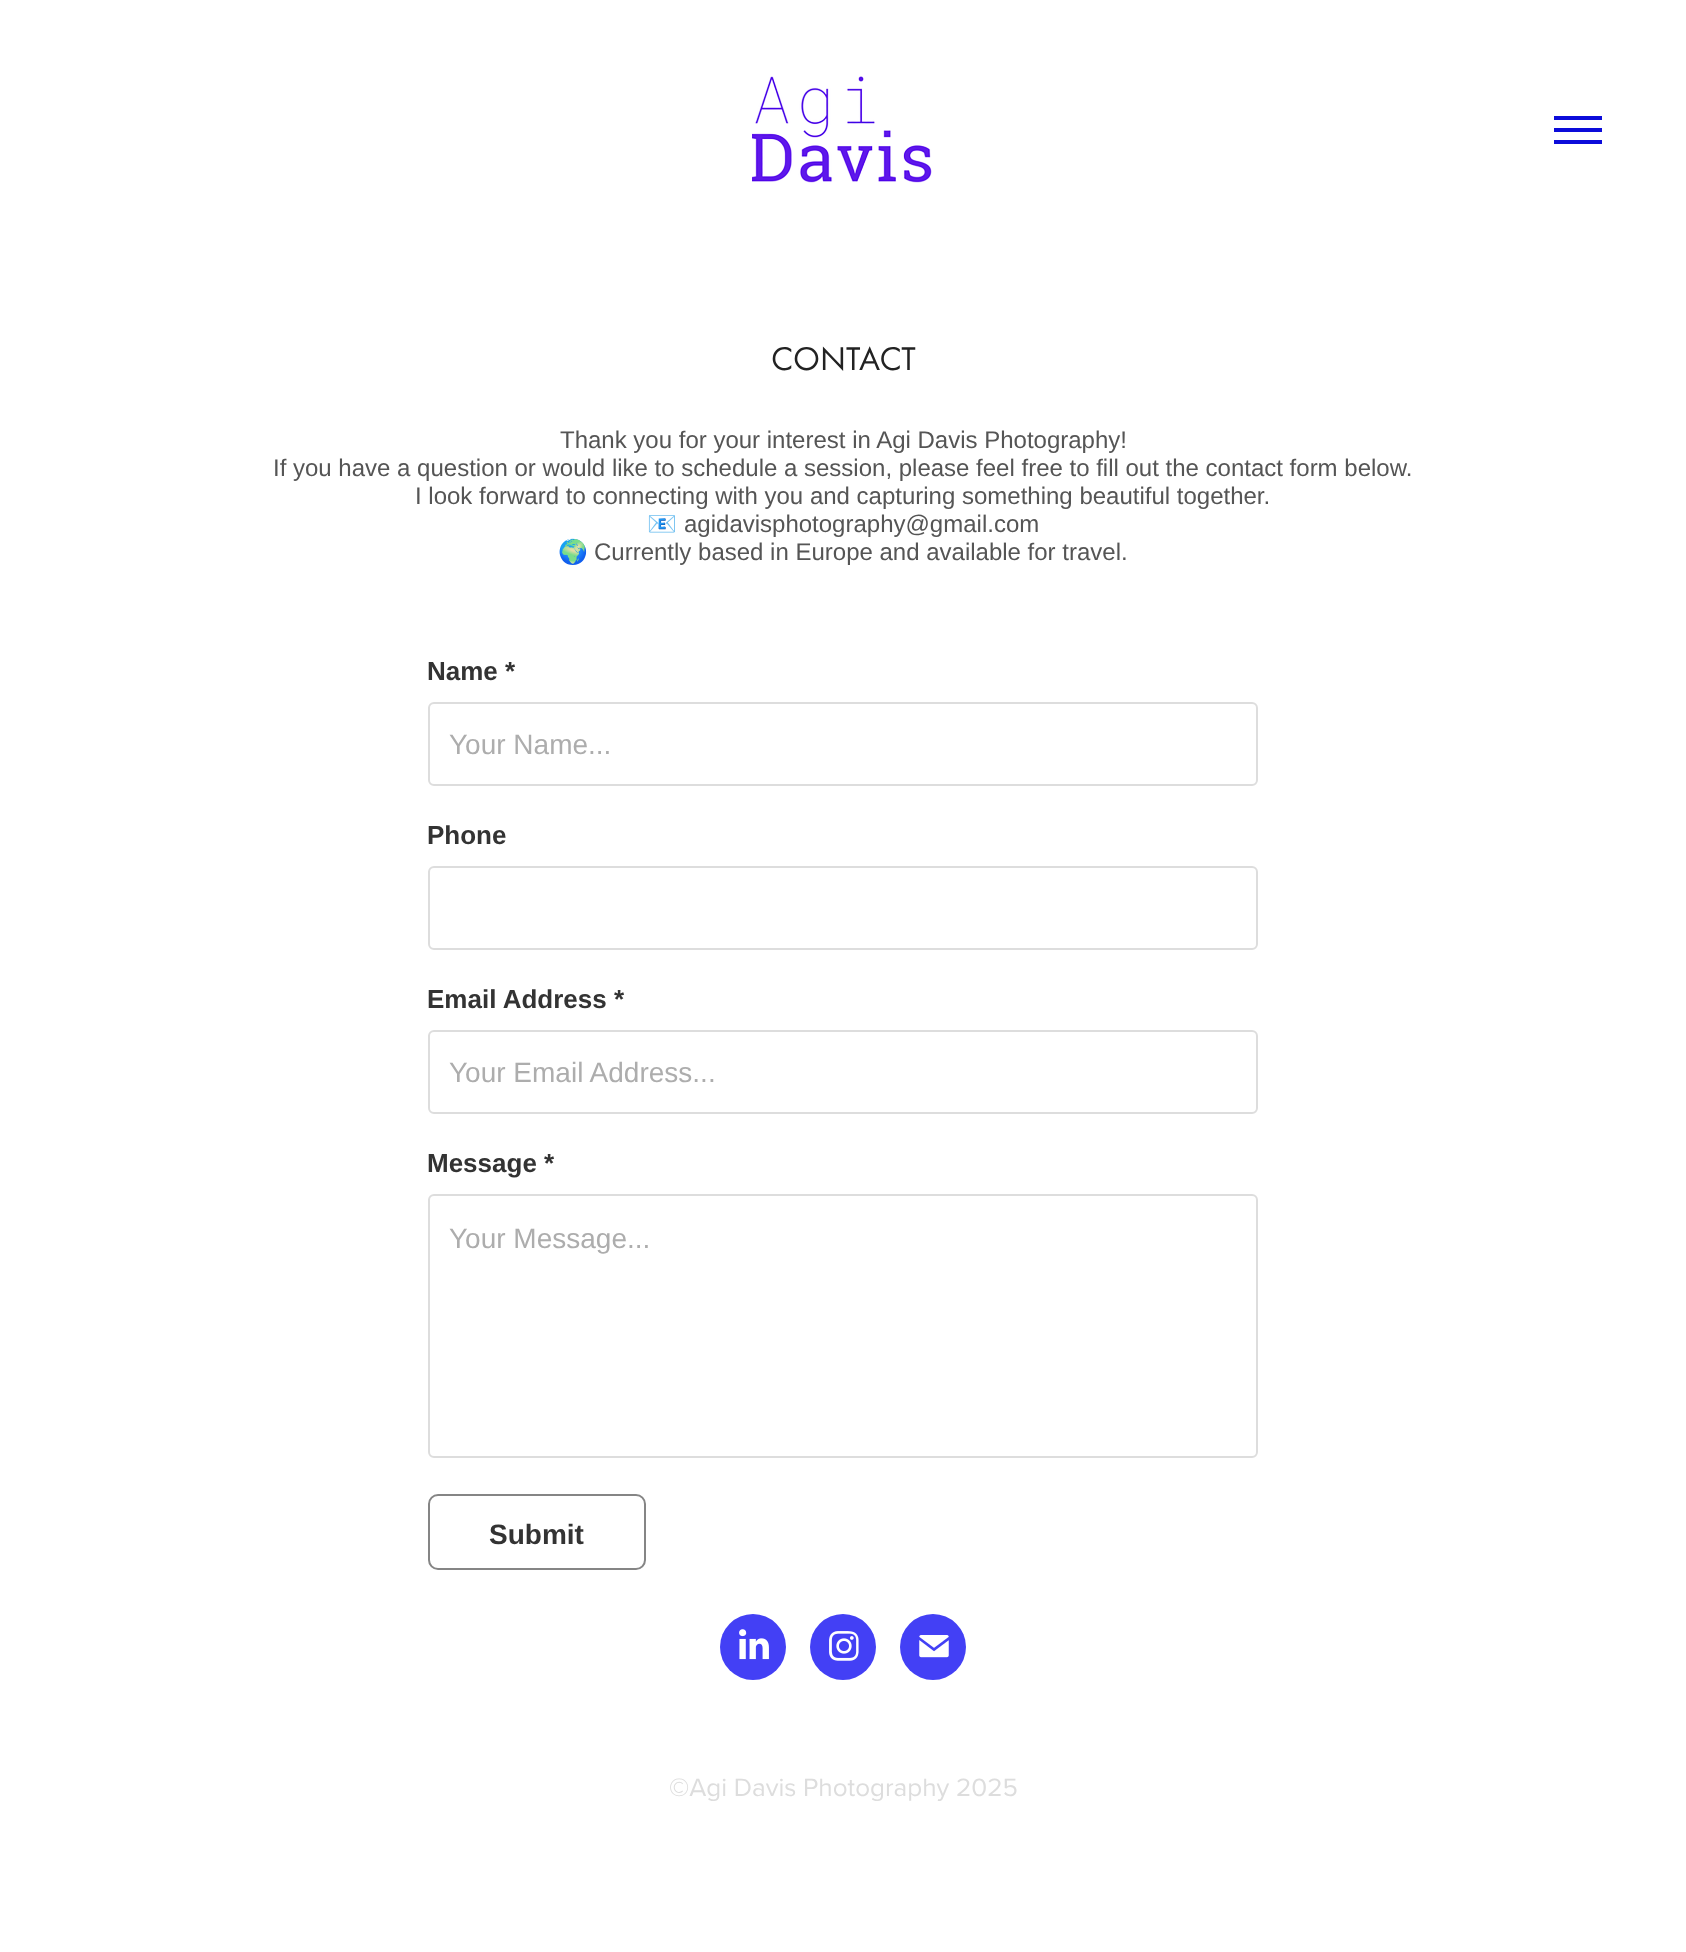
(async () => {
  const canvas = document.querySelector("canvas");
  canvas.width = 1686;
  canvas.height = 1952;
  const ctx = canvas.getContext("2d");
  ctx.miterLimit = 4;
  ctx.fontKerning = "normal";
  async function loadImage(src) {
    const img = new Image();
    img.src = src;
    await img.decode();
    return img;
  }

  ctx.fillStyle = "#ffffff";
  ctx.fillRect(0, 0, 1686, 1952);
  ctx.drawImage(await loadImage("img/1.png"), 752, 76, 180, 107);
  for (const [x, y, w, h, color] of [
    [1554, 116, 48, 4, "#0c0cda"],
    [1554, 128, 48, 4, "#0c0cda"],
    [1554, 140, 48, 4, "#0c0cda"],
  ]) {
    ctx.fillStyle = color;
    ctx.fillRect(x, y, w, h);
  }
  ctx.beginPath();
  ctx.roundRect(429, 703, 828, 82, 5);
  ctx.strokeStyle = "#dddddd";
  ctx.lineWidth = 2;
  ctx.stroke();
  ctx.beginPath();
  ctx.roundRect(429, 867, 828, 82, 5);
  ctx.stroke();
  ctx.beginPath();
  ctx.roundRect(429, 1031, 828, 82, 5);
  ctx.stroke();
  ctx.beginPath();
  ctx.roundRect(429, 1195, 828, 262, 5);
  ctx.stroke();
  ctx.beginPath();
  ctx.roundRect(429, 1495, 216, 74, 9);
  ctx.strokeStyle = "#858585";
  ctx.stroke();
  ctx.fillStyle = "#4340f5";
  ctx.beginPath();
  ctx.arc(753, 1647, 33, 0, Math.PI * 2);
  ctx.fill();
  ctx.drawImage(await loadImage("img/2.png"), 739, 1629, 30, 31);
  ctx.beginPath();
  ctx.arc(843, 1647, 33, 0, Math.PI * 2);
  ctx.fill();
  ctx.drawImage(await loadImage("img/3.png"), 829, 1631, 30, 30);
  ctx.beginPath();
  ctx.arc(933, 1647, 33, 0, Math.PI * 2);
  ctx.fill();
  ctx.drawImage(await loadImage("img/4.png"), 919, 1635, 30, 23);
  ctx.font = "34px Futura PT";
  ctx.fillStyle = "#222222";
  ctx.fillText("CONTACT", 771, 370);
  ctx.font = "24px Liberation Sans";
  ctx.fillStyle = "#555555";
  for (const [text, x, y] of [
    ["Thank you for your interest in Agi Davis Photography!", 560, 448],
    ["If you have a question or would like to schedule a session, please feel free to fill out the contact form below.", 273, 476],
    ["I look forward to connecting with you and capturing something beautiful together.", 415, 504],
  ]) {
    ctx.fillText(text, x, y);
  }
  ctx.font = "24px Noto Color Emoji";
  ctx.fillText("📧", 647, 532);
  ctx.font = "24px Liberation Sans";
  ctx.fillText("agidavisphotography@gmail.com", 684, 532);
  ctx.font = "24px Noto Color Emoji";
  ctx.fillText("🌍", 558, 560);
  ctx.font = "24px Liberation Sans";
  ctx.fillText("Currently based in Europe and available for travel.", 594, 560);
  ctx.font = "bold 26px Liberation Sans";
  ctx.fillStyle = "#333333";
  ctx.fillText("Name *", 427, 680);
  ctx.font = "28px Liberation Sans";
  ctx.fillStyle = "#adadad";
  ctx.fillText("Your Name...", 449, 754);
  ctx.font = "bold 26px Liberation Sans";
  ctx.fillStyle = "#333333";
  ctx.fillText("Phone", 427, 844);
  ctx.fillText("Email Address *", 427, 1008);
  ctx.font = "28px Liberation Sans";
  ctx.fillStyle = "#adadad";
  ctx.fillText("Your Email Address...", 449, 1082);
  ctx.font = "bold 26px Liberation Sans";
  ctx.fillStyle = "#333333";
  ctx.fillText("Message *", 427, 1172);
  ctx.font = "28px Liberation Sans";
  ctx.fillStyle = "#adadad";
  ctx.fillText("Your Message...", 449, 1248);
  ctx.font = "bold 28px Liberation Sans";
  ctx.fillStyle = "#333333";
  ctx.fillText("Submit", 489, 1544);
  ctx.font = "26px Proxima Nova";
  ctx.fillStyle = "#dddddd";
  ctx.fillText("©Agi Davis Photography 2025", 669, 1796);
})();
